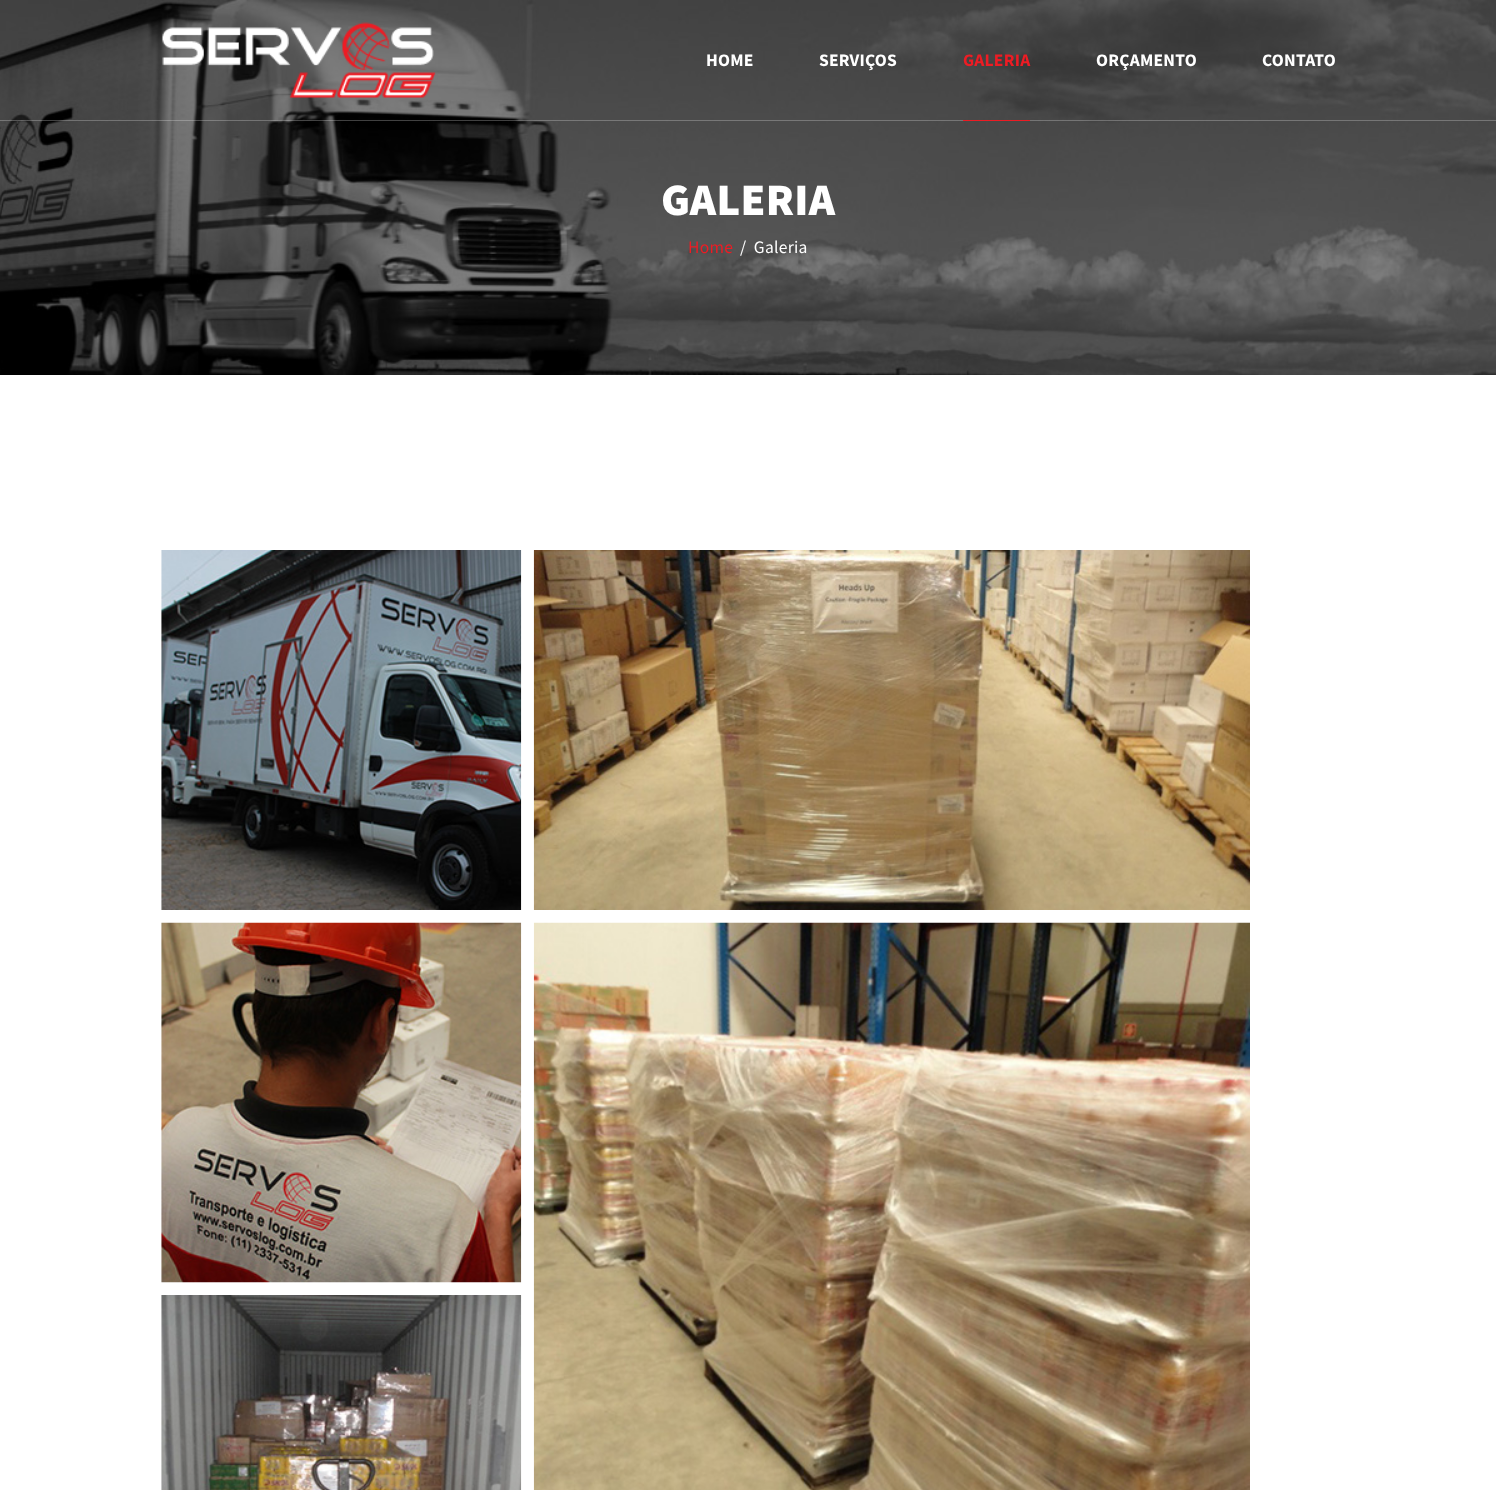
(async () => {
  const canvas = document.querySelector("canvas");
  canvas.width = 1496;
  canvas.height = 1490;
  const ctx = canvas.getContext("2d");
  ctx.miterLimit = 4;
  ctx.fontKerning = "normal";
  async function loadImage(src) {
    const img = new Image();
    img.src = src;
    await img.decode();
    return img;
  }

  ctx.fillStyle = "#ffffff";
  ctx.fillRect(0, 0, 1496, 1490);
  ctx.drawImage(await loadImage("img/2.png"), 0, 0, 1496, 375);
  ctx.fillStyle = "rgba(255, 255, 255, 0.25)";
  ctx.fillRect(0, 120, 1496, 1);
  ctx.drawImage(await loadImage("img/1.png"), 162, 22, 274, 76);
  ctx.fillStyle = "#ed1c24";
  ctx.fillRect(963, 120, 67, 1);
  ctx.drawImage(await loadImage("img/3.png"), 161, 550, 361, 360);
  ctx.drawImage(await loadImage("img/4.png"), 533, 550, 717, 360);
  ctx.drawImage(await loadImage("img/5.png"), 161, 922, 361, 361);
  ctx.drawImage(await loadImage("img/6.png"), 533, 922, 717, 568);
  ctx.drawImage(await loadImage("img/7.png"), 161, 1295, 361, 195);
  ctx.letterSpacing = "0.25px";
  ctx.font = "bold 17.5px Source Sans Pro";
  ctx.fillStyle = "#ffffff";
  ctx.fillText("HOME", 706, 66);
  ctx.fillText("SERVIÇOS", 819, 66);
  ctx.fillStyle = "#ed1c24";
  ctx.fillText("GALERIA", 963, 66);
  ctx.fillStyle = "#ffffff";
  ctx.fillText("ORÇAMENTO", 1096, 66);
  ctx.fillText("CONTATO", 1262, 66);
  ctx.font = "900 45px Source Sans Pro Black";
  ctx.fillText("GALERIA", 661, 215);
  ctx.font = "17.5px Source Sans Pro";
  ctx.fillStyle = "#ed1c24";
  ctx.fillText("Home", 688, 253);
  ctx.fillStyle = "#ffffff";
  ctx.fillText("/  Galeria", 740, 253);
})();
